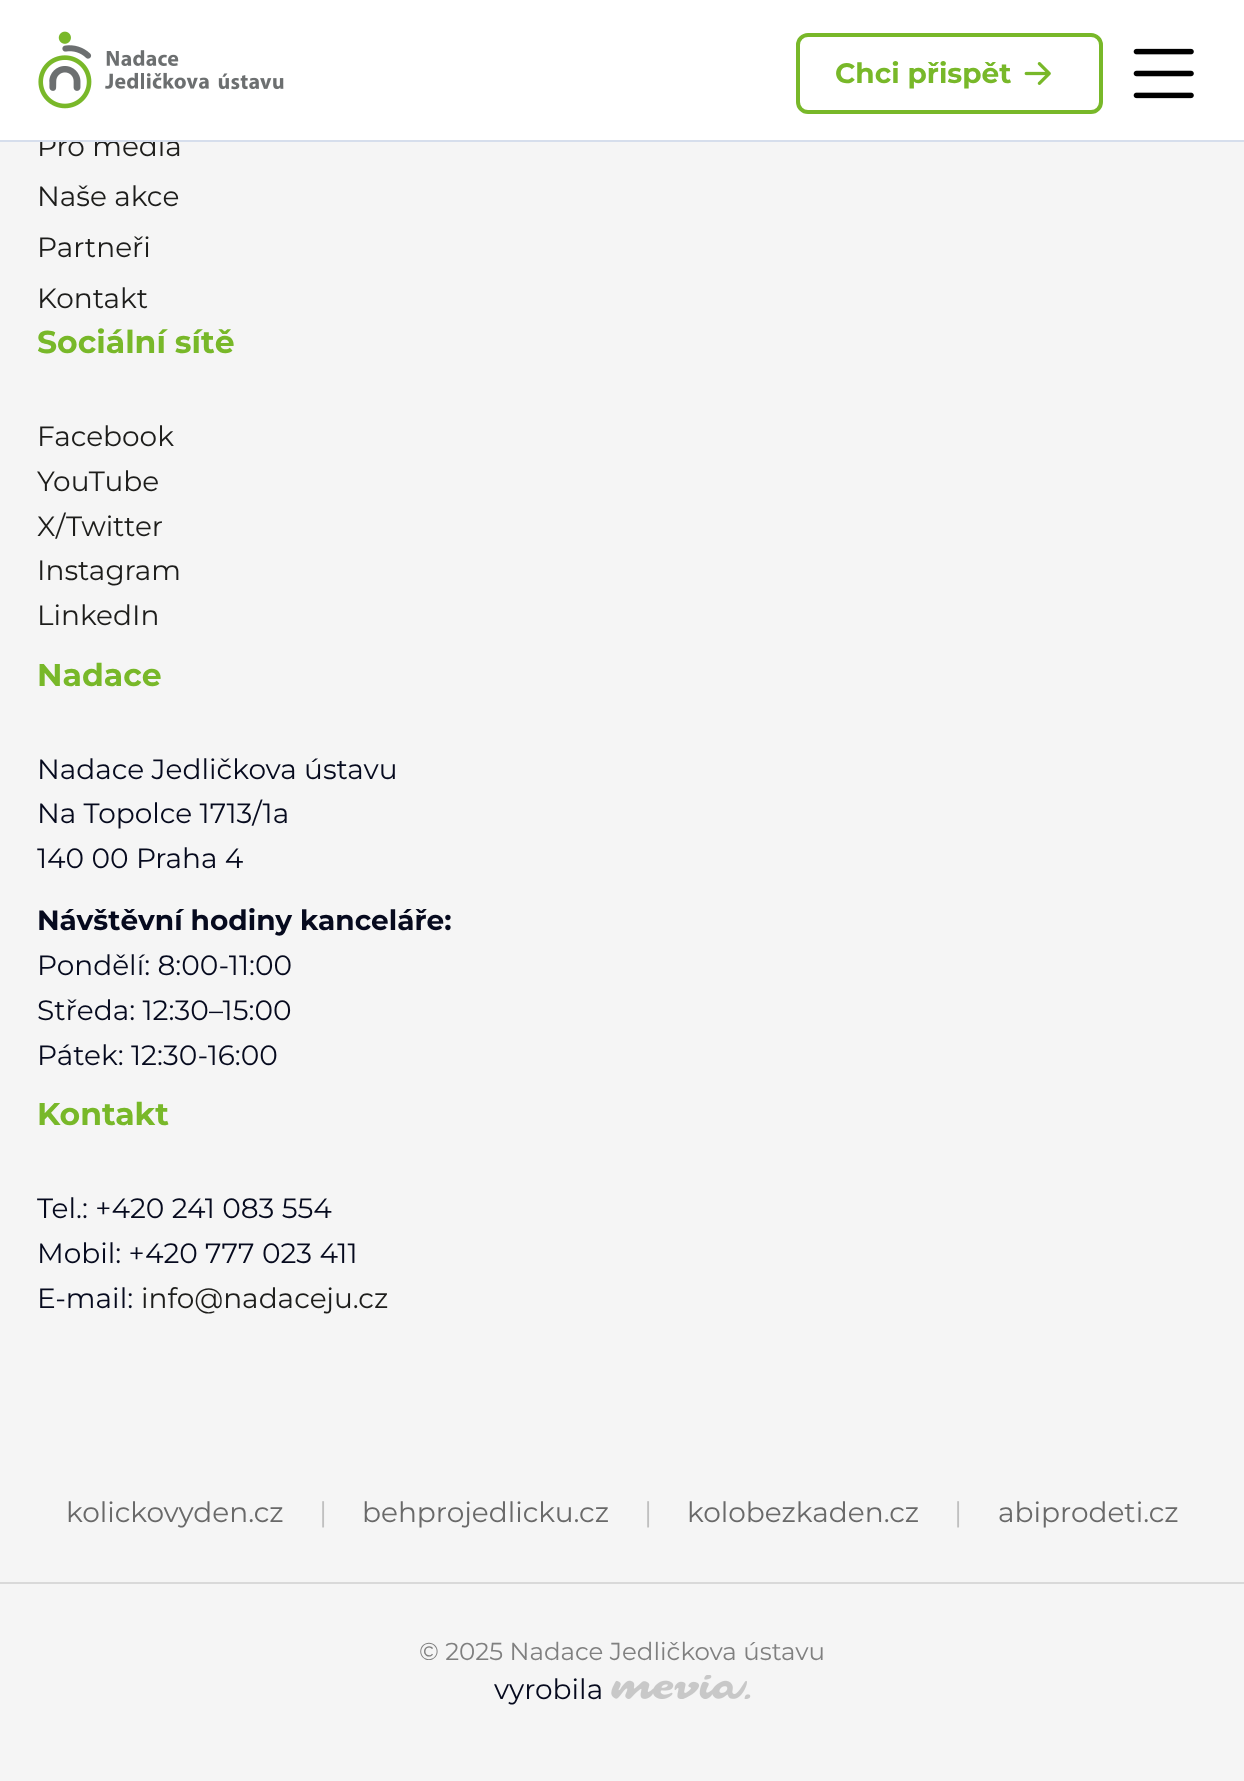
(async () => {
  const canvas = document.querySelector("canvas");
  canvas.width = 1244;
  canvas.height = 1781;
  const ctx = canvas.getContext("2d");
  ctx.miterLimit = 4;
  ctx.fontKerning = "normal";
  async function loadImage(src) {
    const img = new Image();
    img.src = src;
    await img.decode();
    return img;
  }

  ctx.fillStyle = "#f5f5f5";
  ctx.fillRect(0, 0, 1244, 1781);
  ctx.fillStyle = "#d9d9d9";
  ctx.fillRect(0, 1582, 1244, 2);
  ctx.drawImage(await loadImage("img/4.png"), 611, 1675, 140, 24);
  ctx.font = "28px Montserrat";
  ctx.fillStyle = "#1d1d1b";
  ctx.fillText("Pro média", 37, 156);
  ctx.fillStyle = "#ffffff";
  ctx.fillRect(0, 0, 1244, 140);
  ctx.drawImage(await loadImage("img/3.png"), 1133, 48, 61, 51);
  ctx.beginPath();
  ctx.roundRect(798, 35, 303, 77, 10);
  ctx.strokeStyle = "#78b829";
  ctx.lineWidth = 4;
  ctx.stroke();
  ctx.drawImage(await loadImage("img/2.png"), 1024, 62, 27, 23);
  ctx.font = "bold 28px Montserrat";
  ctx.fillStyle = "#78b829";
  ctx.fillText("Chci přispět", 835, 83);
  ctx.drawImage(await loadImage("img/1.png"), 38, 31, 246, 78);
  ctx.fillStyle = "#d6deec";
  ctx.fillRect(0, 140, 1244, 2);
  ctx.font = "28px Montserrat";
  ctx.fillStyle = "#1d1d1b";
  for (const [text, x, y] of [
    ["Naše akce", 37, 206],
    ["Partneři", 37, 257],
    ["Kontakt", 37, 308],
  ]) {
    ctx.fillText(text, x, y);
  }
  ctx.font = "bold 31.5px Montserrat";
  ctx.fillStyle = "#78b829";
  ctx.fillText("Sociální sítě", 37, 353);
  ctx.font = "28px Montserrat";
  ctx.fillStyle = "#1d1d1b";
  for (const [text, x, y] of [
    ["Facebook", 37, 446],
    ["YouTube", 37, 491],
    ["X/Twitter", 37, 536],
    ["Instagram", 37, 580],
    ["LinkedIn", 37, 625],
  ]) {
    ctx.fillText(text, x, y);
  }
  ctx.font = "bold 31.5px Montserrat";
  ctx.fillStyle = "#78b829";
  ctx.fillText("Nadace", 37, 686);
  ctx.font = "28px Montserrat";
  ctx.fillStyle = "#060a1e";
  for (const [text, x, y] of [
    ["Nadace Jedličkova ústavu", 37, 779],
    ["Na Topolce 1713/1a", 37, 823],
    ["140 00 Praha 4", 37, 868],
  ]) {
    ctx.fillText(text, x, y);
  }
  ctx.font = "bold 28px Montserrat";
  ctx.fillText("Návštěvní hodiny kanceláře:", 37, 930);
  ctx.font = "28px Montserrat";
  for (const [text, x, y] of [
    ["Pondělí: 8:00-11:00", 37, 975],
    ["Středa: 12:30–15:00", 37, 1020],
    ["Pátek: 12:30-16:00", 37, 1065],
  ]) {
    ctx.fillText(text, x, y);
  }
  ctx.font = "bold 31.5px Montserrat";
  ctx.fillStyle = "#78b829";
  ctx.fillText("Kontakt", 37, 1125);
  ctx.font = "28px Montserrat";
  ctx.fillStyle = "#060a1e";
  for (const [text, x, y] of [
    ["Tel.: +420 241 083 554", 37, 1218],
    ["Mobil: +420 777 023 411", 37, 1263],
    ["E-mail:", 37, 1308],
  ]) {
    ctx.fillText(text, x, y);
  }
  ctx.fillStyle = "#1d1d1b";
  ctx.fillText("info@nadaceju.cz", 141, 1308);
  ctx.fillStyle = "#696969";
  ctx.fillText("kolickovyden.cz", 66, 1522);
  ctx.fillStyle = "#c0c0c0";
  ctx.fillText("|", 319, 1522);
  ctx.fillStyle = "#696969";
  ctx.fillText("behprojedlicku.cz", 362, 1522);
  ctx.fillStyle = "#c0c0c0";
  ctx.fillText("|", 644, 1522);
  ctx.fillStyle = "#696969";
  ctx.fillText("kolobezkaden.cz", 687, 1522);
  ctx.fillStyle = "#c0c0c0";
  ctx.fillText("|", 954, 1522);
  ctx.fillStyle = "#696969";
  ctx.fillText("abiprodeti.cz", 998, 1522);
  ctx.font = "24.5px Montserrat";
  ctx.fillStyle = "#808080";
  ctx.fillText("© 2025 Nadace Jedličkova ústavu", 419, 1660);
  ctx.font = "28px Montserrat";
  ctx.fillStyle = "#060a1e";
  ctx.fillText("vyrobila", 494, 1699);
})();
